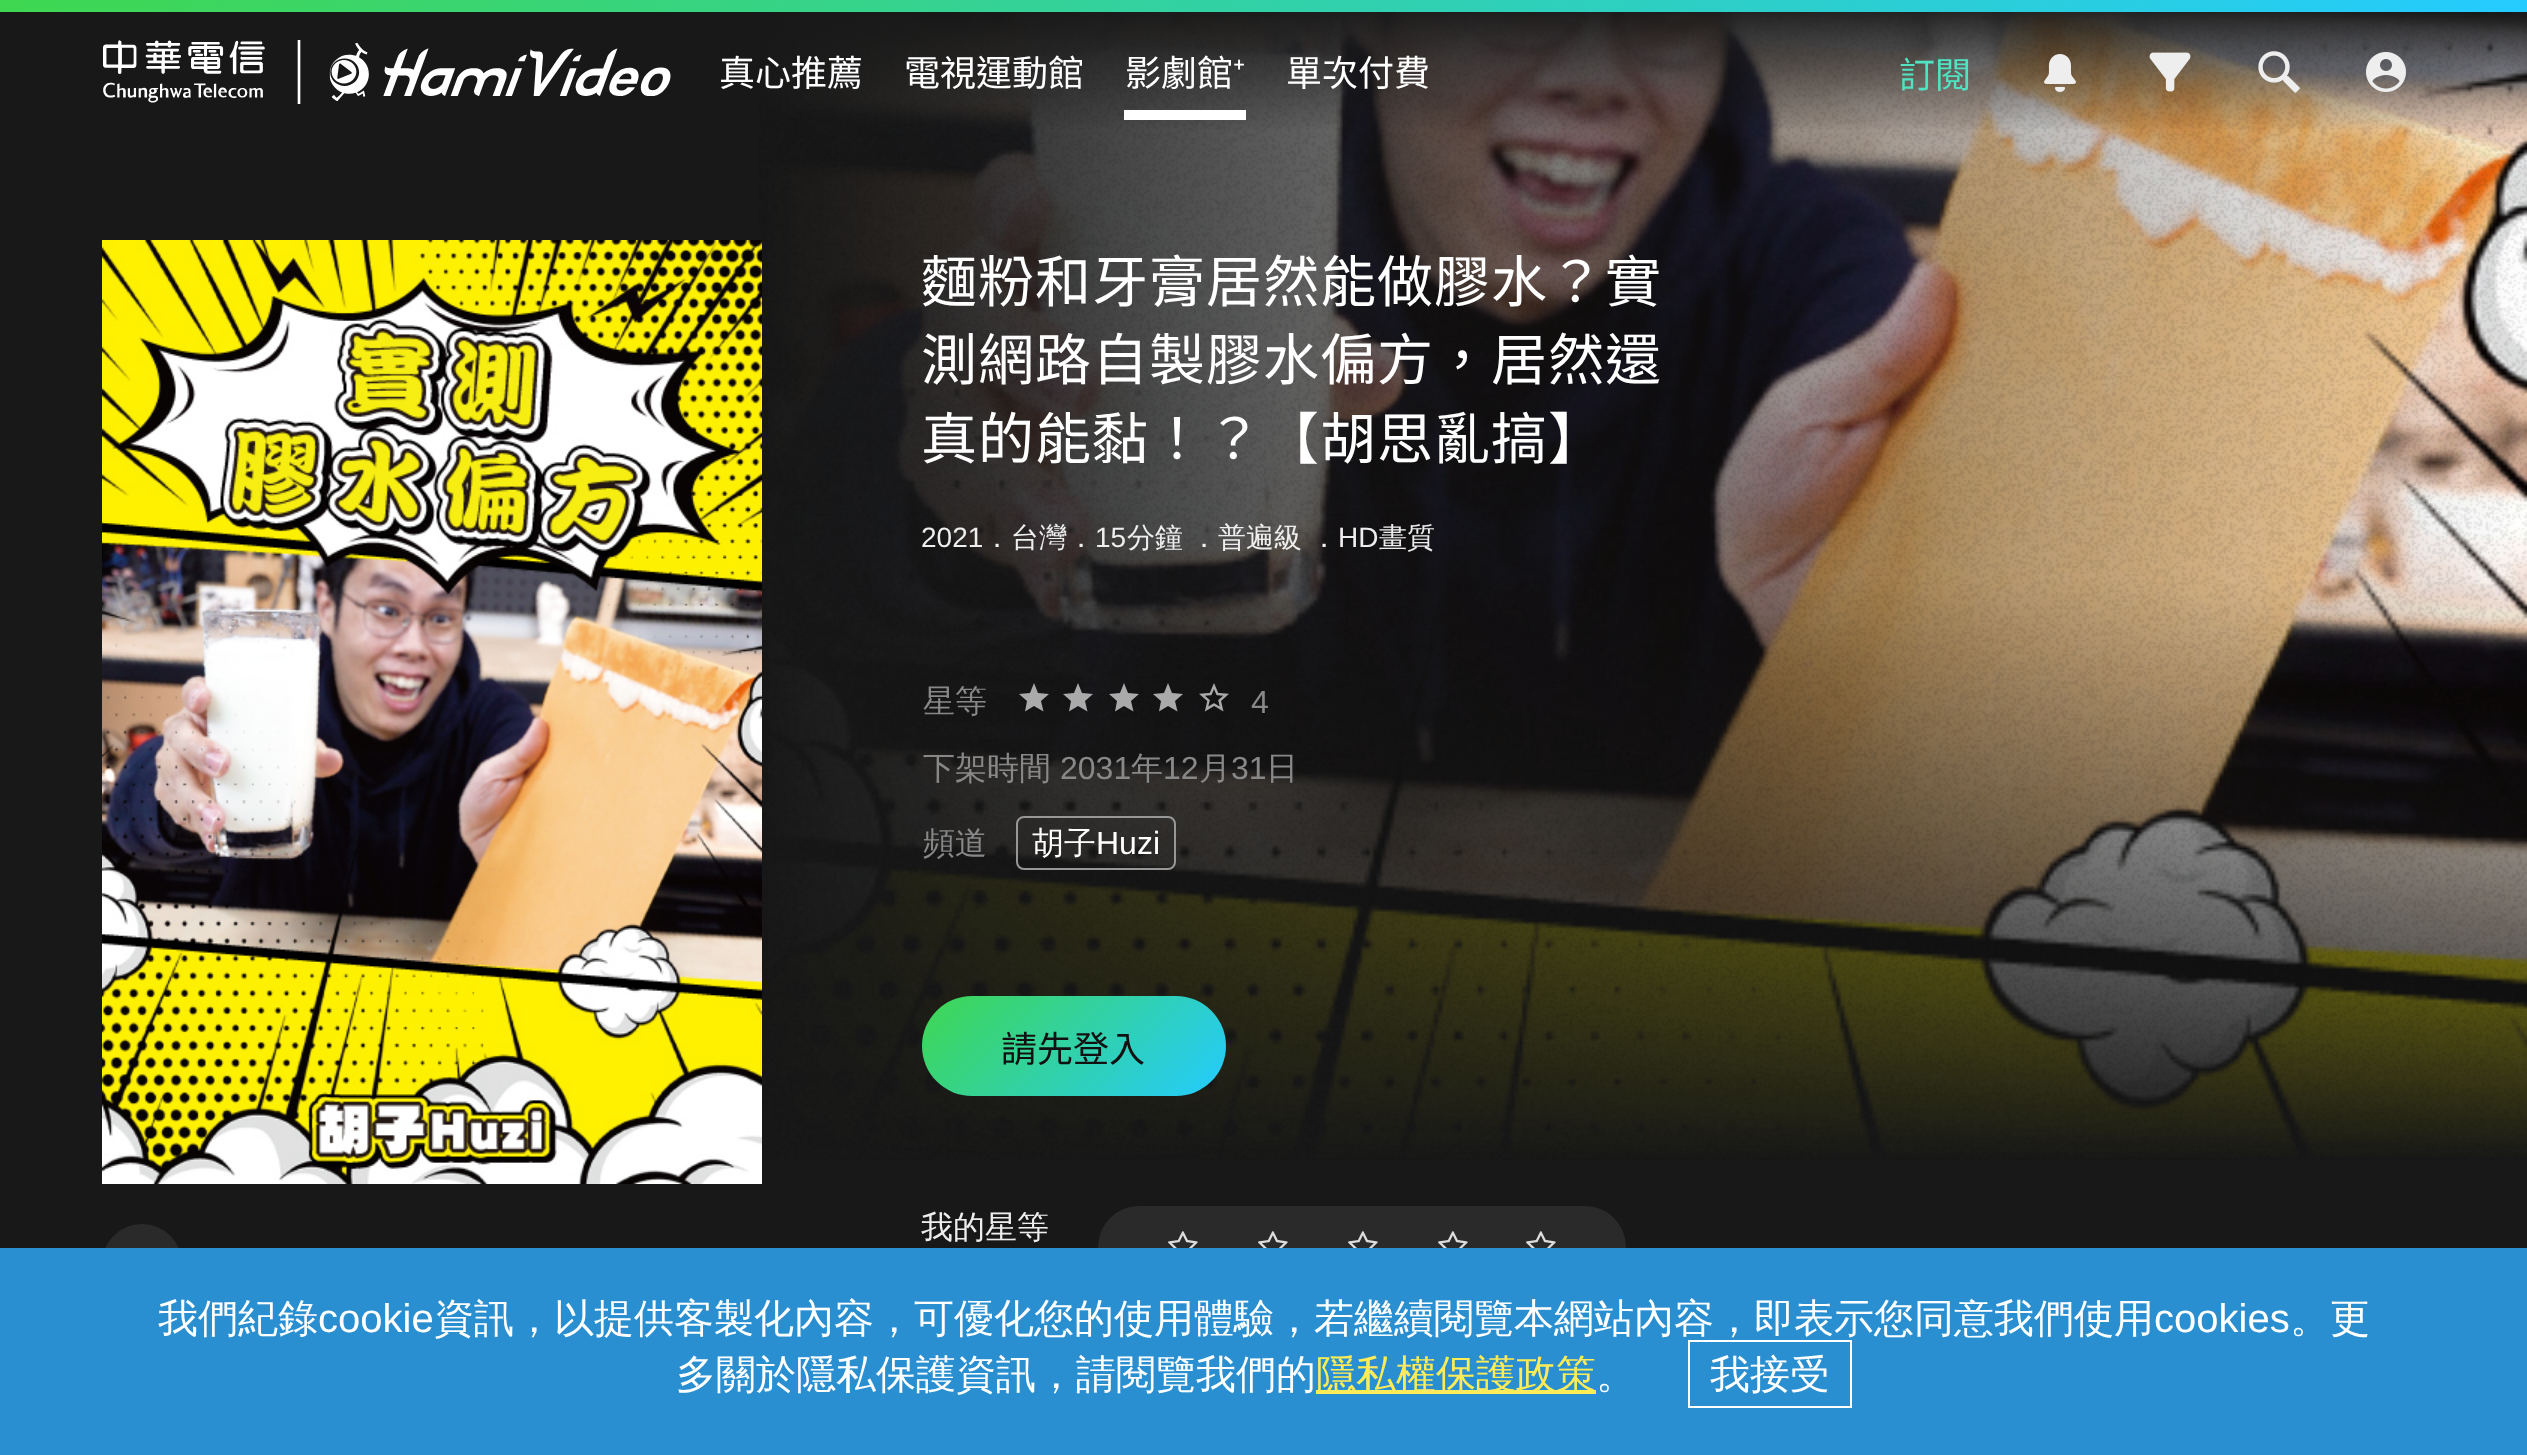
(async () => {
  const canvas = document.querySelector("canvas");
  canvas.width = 2527;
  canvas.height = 1455;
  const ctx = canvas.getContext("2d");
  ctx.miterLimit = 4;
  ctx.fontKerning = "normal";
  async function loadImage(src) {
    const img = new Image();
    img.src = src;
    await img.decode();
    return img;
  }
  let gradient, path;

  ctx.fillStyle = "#181818";
  ctx.fillRect(0, 0, 2527, 1455);
  ctx.drawImage(await loadImage("img/7.png"), 768, 12, 1759, 1145);
  ctx.drawImage(await loadImage("img/6.png"), 758, 12, 1769, 1148);
  gradient = ctx.createLinearGradient(1264, 0, 1264, 132);
  gradient.addColorStop(0, "#181818");
  gradient.addColorStop(1, "rgba(24, 24, 24, 0)");
  ctx.fillStyle = gradient;
  ctx.fillRect(759, 12, 1768, 117);
  gradient = ctx.createLinearGradient(623, -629, 1905, 641);
  gradient.addColorStop(0, "#3fd750");
  gradient.addColorStop(1, "#24cbff");
  ctx.fillStyle = gradient;
  ctx.fillRect(0, 0, 2527, 12);
  ctx.drawImage(await loadImage("img/1.png"), 102, 40, 569, 64);
  ctx.fillStyle = "#ffffff";
  ctx.fillRect(1124, 110, 122, 10);
  ctx.drawImage(await loadImage("img/2.png"), 2044, 54, 32, 38);
  ctx.drawImage(await loadImage("img/3.png"), 2149, 52, 42, 40);
  ctx.drawImage(await loadImage("img/4.png"), 2258, 51, 42, 42);
  ctx.drawImage(await loadImage("img/5.png"), 2366, 52, 40, 40);
  ctx.drawImage(await loadImage("img/8.png"), 102, 240, 660, 944);
  ctx.fillStyle = "#2a2a2a";
  ctx.beginPath();
  ctx.arc(142, 1264, 40, 0, Math.PI * 2);
  ctx.fill();
  ctx.fillStyle = "#aaaaaa";
  path = new Path2D("M1034 706L1043.5 711.5L1041 701L1049 694L1038 693L1034 683L1030 693L1019 694L1027 701L1025 711.5Z");
  ctx.fill(path);
  path = new Path2D("M1078 706L1087.5 711.5L1085 701L1093 694L1082 693L1078 683L1074 693L1063 694L1071 701L1069 711.5Z");
  ctx.fill(path);
  path = new Path2D("M1124 706L1133.5 711.5L1131 701L1139 694L1128 693L1124 683L1120 693L1109 694L1117 701L1115 711.5Z");
  ctx.fill(path);
  path = new Path2D("M1168 706L1177.5 711.5L1175 701L1183 694L1172 693L1168 683L1164 693L1153 694L1161 701L1159 711.5Z");
  ctx.fill(path);
  ctx.drawImage(await loadImage("img/9.png"), 1199, 683, 30, 29);
  ctx.beginPath();
  ctx.roundRect(1017, 817, 158, 52, 7);
  ctx.strokeStyle = "#979797";
  ctx.lineWidth = 2;
  ctx.stroke();
  gradient = ctx.createLinearGradient(972, 945, 1176, 1147);
  gradient.addColorStop(0, "#3fd750");
  gradient.addColorStop(1, "#24cbff");
  ctx.fillStyle = gradient;
  ctx.beginPath();
  ctx.roundRect(922, 996, 304, 100, 50);
  ctx.fill();
  ctx.fillStyle = "#2a2a2a";
  ctx.beginPath();
  ctx.roundRect(1098, 1206, 528, 82, 41);
  ctx.fill();
  ctx.drawImage(await loadImage("img/10.png"), 1168, 1231, 30, 17);
  ctx.drawImage(await loadImage("img/10.png"), 1258, 1231, 30, 17);
  ctx.drawImage(await loadImage("img/10.png"), 1348, 1231, 30, 17);
  ctx.drawImage(await loadImage("img/10.png"), 1438, 1231, 30, 17);
  ctx.drawImage(await loadImage("img/10.png"), 1526, 1231, 30, 17);
  ctx.fillStyle = "#298fd1";
  ctx.fillRect(0, 1248, 2527, 207);
  ctx.fillStyle = "#fdec57";
  ctx.fillRect(1316, 1390, 280, 4);
  ctx.strokeStyle = "#ffffff";
  ctx.strokeRect(1689, 1341, 162, 66);
  ctx.font = "100 36px Noto Sans TC";
  ctx.fillStyle = "#ffffff";
  for (const [text, x, y] of [
    ["真心推薦", 719, 86],
    ["電視運動館", 904, 86],
    ["影劇館", 1125, 86],
  ]) {
    ctx.fillText(text, x, y);
  }
  ctx.font = "36px Noto Sans";
  ctx.fillText("⁺", 1233, 86);
  ctx.font = "100 36px Noto Sans TC";
  ctx.fillText("單次付費", 1286, 86);
  ctx.fillStyle = "#50e3c2";
  ctx.fillText("訂閱", 1899, 88);
  ctx.letterSpacing = "1px";
  ctx.font = "100 56px Noto Sans TC";
  ctx.fillStyle = "#ffffff";
  for (const [text, x, y] of [
    ["麵粉和牙膏居然能做膠水？實", 921, 302],
    ["測網路自製膠水偏方，居然還", 921, 380],
    ["真的能黏！？【胡思亂搞】", 921, 459],
  ]) {
    ctx.fillText(text, x, y);
  }
  ctx.letterSpacing = "0px";
  ctx.font = "28px Liberation Sans";
  ctx.fillStyle = "#eeeeee";
  ctx.fillText("2021", 921, 547);
  ctx.font = "500 28px WenQuanYi Zen Hei";
  ctx.fillText("．台灣．", 983, 547);
  ctx.font = "28px Liberation Sans";
  ctx.fillText("15", 1095, 547);
  ctx.font = "500 28px WenQuanYi Zen Hei";
  for (const [text, x, y] of [
    ["分鐘", 1127, 547],
    ["．普遍級", 1190, 547],
    ["．", 1310, 547],
  ]) {
    ctx.fillText(text, x, y);
  }
  ctx.font = "28px Liberation Sans";
  ctx.fillText("HD", 1338, 547);
  ctx.font = "500 28px WenQuanYi Zen Hei";
  ctx.fillText("畫質", 1379, 547);
  ctx.font = "500 32px WenQuanYi Zen Hei";
  ctx.fillStyle = "#888888";
  ctx.fillText("星等", 923, 712);
  ctx.font = "32px Liberation Sans";
  ctx.fillText("4", 1251, 713);
  ctx.font = "500 32px WenQuanYi Zen Hei";
  ctx.fillText("下架時間", 923, 779);
  ctx.font = "32px Liberation Sans";
  ctx.fillText("2031", 1060, 779);
  ctx.font = "500 32px WenQuanYi Zen Hei";
  ctx.fillText("年", 1131, 779);
  ctx.font = "32px Liberation Sans";
  ctx.fillText("12", 1163, 779);
  ctx.font = "500 32px WenQuanYi Zen Hei";
  ctx.fillText("月", 1199, 779);
  ctx.font = "32px Liberation Sans";
  ctx.fillText("31", 1231, 779);
  ctx.font = "500 32px WenQuanYi Zen Hei";
  ctx.fillText("日", 1266, 779);
  ctx.fillText("頻道", 923, 854);
  ctx.fillStyle = "#ffffff";
  ctx.fillText("胡子", 1032, 854);
  ctx.font = "32px Liberation Sans";
  ctx.fillText("Huzi", 1096, 854);
  ctx.font = "100 36px Noto Sans TC";
  ctx.fillStyle = "#111111";
  ctx.fillText("請先登入", 1001, 1062);
  ctx.font = "500 32px WenQuanYi Zen Hei";
  ctx.fillStyle = "#eeeeee";
  ctx.fillText("我的星等", 921, 1238);
  ctx.font = "500 40px WenQuanYi Zen Hei";
  ctx.fillStyle = "#ffffff";
  ctx.fillText("我們紀錄", 158, 1332);
  ctx.font = "40px Liberation Sans";
  ctx.fillText("cookie", 318, 1332);
  ctx.font = "500 40px WenQuanYi Zen Hei";
  ctx.fillText("資訊，以提供客製化內容，可優化您的使用體驗，若繼續閱覽本網站內容，即表示您同意我們使用", 434, 1332);
  ctx.font = "40px Liberation Sans";
  ctx.fillText("cookies", 2154, 1332);
  ctx.font = "500 40px WenQuanYi Zen Hei";
  ctx.fillText("。更", 2290, 1332);
  ctx.fillText("多關於隱私保護資訊，請閱覽我們的", 676, 1388);
  ctx.fillStyle = "#fdec57";
  ctx.fillText("隱私權保護政策", 1316, 1388);
  ctx.fillStyle = "#ffffff";
  ctx.fillText("。", 1596, 1388);
  ctx.fillText("我接受", 1710, 1388);
})();
